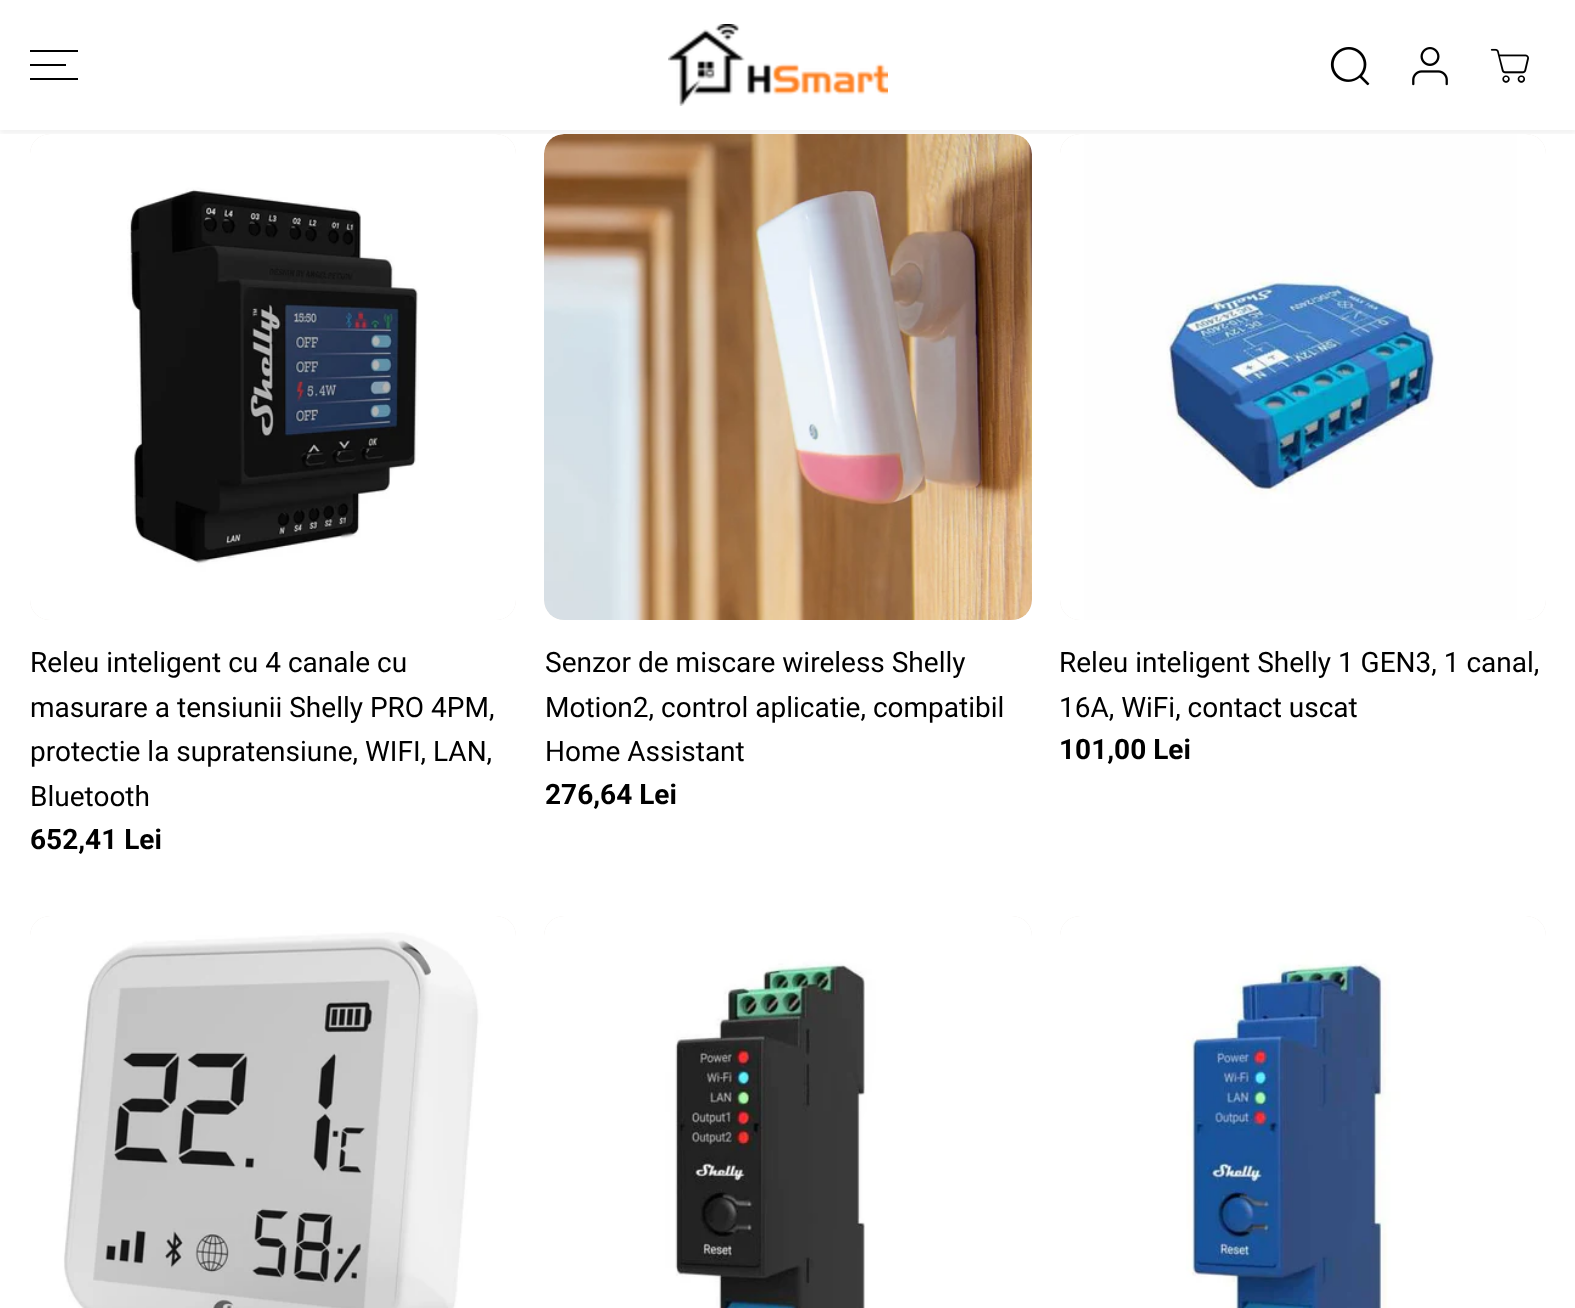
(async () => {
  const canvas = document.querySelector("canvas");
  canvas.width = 1575;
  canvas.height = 1308;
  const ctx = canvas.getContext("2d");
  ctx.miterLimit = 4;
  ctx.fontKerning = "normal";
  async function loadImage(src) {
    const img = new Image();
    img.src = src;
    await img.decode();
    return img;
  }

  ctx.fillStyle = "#ffffff";
  ctx.fillRect(0, 0, 1575, 1308);
  ctx.fillStyle = "#f3efec";
  ctx.beginPath();
  ctx.roundRect(30, 134, 486, 486, 20);
  ctx.fill();
  ctx.drawImage(await loadImage("img/5.png"), 30, 134, 486, 486);
  ctx.beginPath();
  ctx.roundRect(544, 134, 488, 486, 20);
  ctx.fill();
  ctx.drawImage(await loadImage("img/6.png"), 544, 134, 488, 486);
  ctx.beginPath();
  ctx.roundRect(1060, 134, 486, 486, 20);
  ctx.fill();
  ctx.drawImage(await loadImage("img/7.png"), 1060, 134, 486, 486);
  ctx.save();
  ctx.beginPath();
  ctx.rect(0, 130, 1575, 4);
  ctx.clip();
  ctx.fillStyle = "rgba(0, 0, 0, 0.05)";
  ctx.filter = "blur(2px)";
  ctx.beginPath();
  ctx.rect(0, 4, 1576, 130);
  ctx.fill();
  ctx.filter = "none";
  ctx.restore();
  for (const [x, y, w, h, color] of [
    [30, 64, 36, 2, "#000000"],
    [30, 50, 48, 2, "#000000"],
    [30, 78, 48, 2, "#000000"],
  ]) {
    ctx.fillStyle = color;
    ctx.fillRect(x, y, w, h);
  }
  ctx.drawImage(await loadImage("img/1.png"), 668, 24, 220, 82);
  ctx.drawImage(await loadImage("img/2.png"), 1330, 47, 40, 39);
  ctx.drawImage(await loadImage("img/3.png"), 1412, 47, 36, 39);
  ctx.drawImage(await loadImage("img/4.png"), 1490, 48, 39, 35);
  ctx.fillStyle = "#f3efec";
  ctx.beginPath();
  ctx.roundRect(30, 916, 486, 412, 20);
  ctx.fill();
  ctx.drawImage(await loadImage("img/8.png"), 30, 916, 486, 392);
  ctx.beginPath();
  ctx.roundRect(544, 916, 488, 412, 20);
  ctx.fill();
  ctx.drawImage(await loadImage("img/9.png"), 544, 916, 488, 392);
  ctx.beginPath();
  ctx.roundRect(1060, 916, 486, 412, 20);
  ctx.fill();
  ctx.drawImage(await loadImage("img/10.png"), 1060, 916, 486, 392);
  ctx.font = "28px Roboto";
  ctx.fillStyle = "#000000";
  for (const [text, x, y] of [
    ["Releu inteligent cu 4 canale cu", 30, 672],
    ["masurare a tensiunii Shelly PRO 4PM,", 30, 717],
    ["protectie la supratensiune, WIFI, LAN,", 30, 761],
    ["Bluetooth", 30, 806],
  ]) {
    ctx.fillText(text, x, y);
  }
  ctx.font = "bold 28px Roboto";
  ctx.fillText("652,41 Lei", 30, 849);
  ctx.font = "28px Roboto";
  for (const [text, x, y] of [
    ["Senzor de miscare wireless Shelly", 545, 672],
    ["Motion2, control aplicatie, compatibil", 545, 717],
    ["Home Assistant", 545, 761],
  ]) {
    ctx.fillText(text, x, y);
  }
  ctx.font = "bold 28px Roboto";
  ctx.fillText("276,64 Lei", 545, 804);
  ctx.font = "28px Roboto";
  ctx.fillText("Releu inteligent Shelly 1 GEN3, 1 canal,", 1059, 672);
  ctx.fillText("16A, WiFi, contact uscat", 1059, 717);
  ctx.font = "bold 28px Roboto";
  ctx.fillText("101,00 Lei", 1059, 759);
})();
